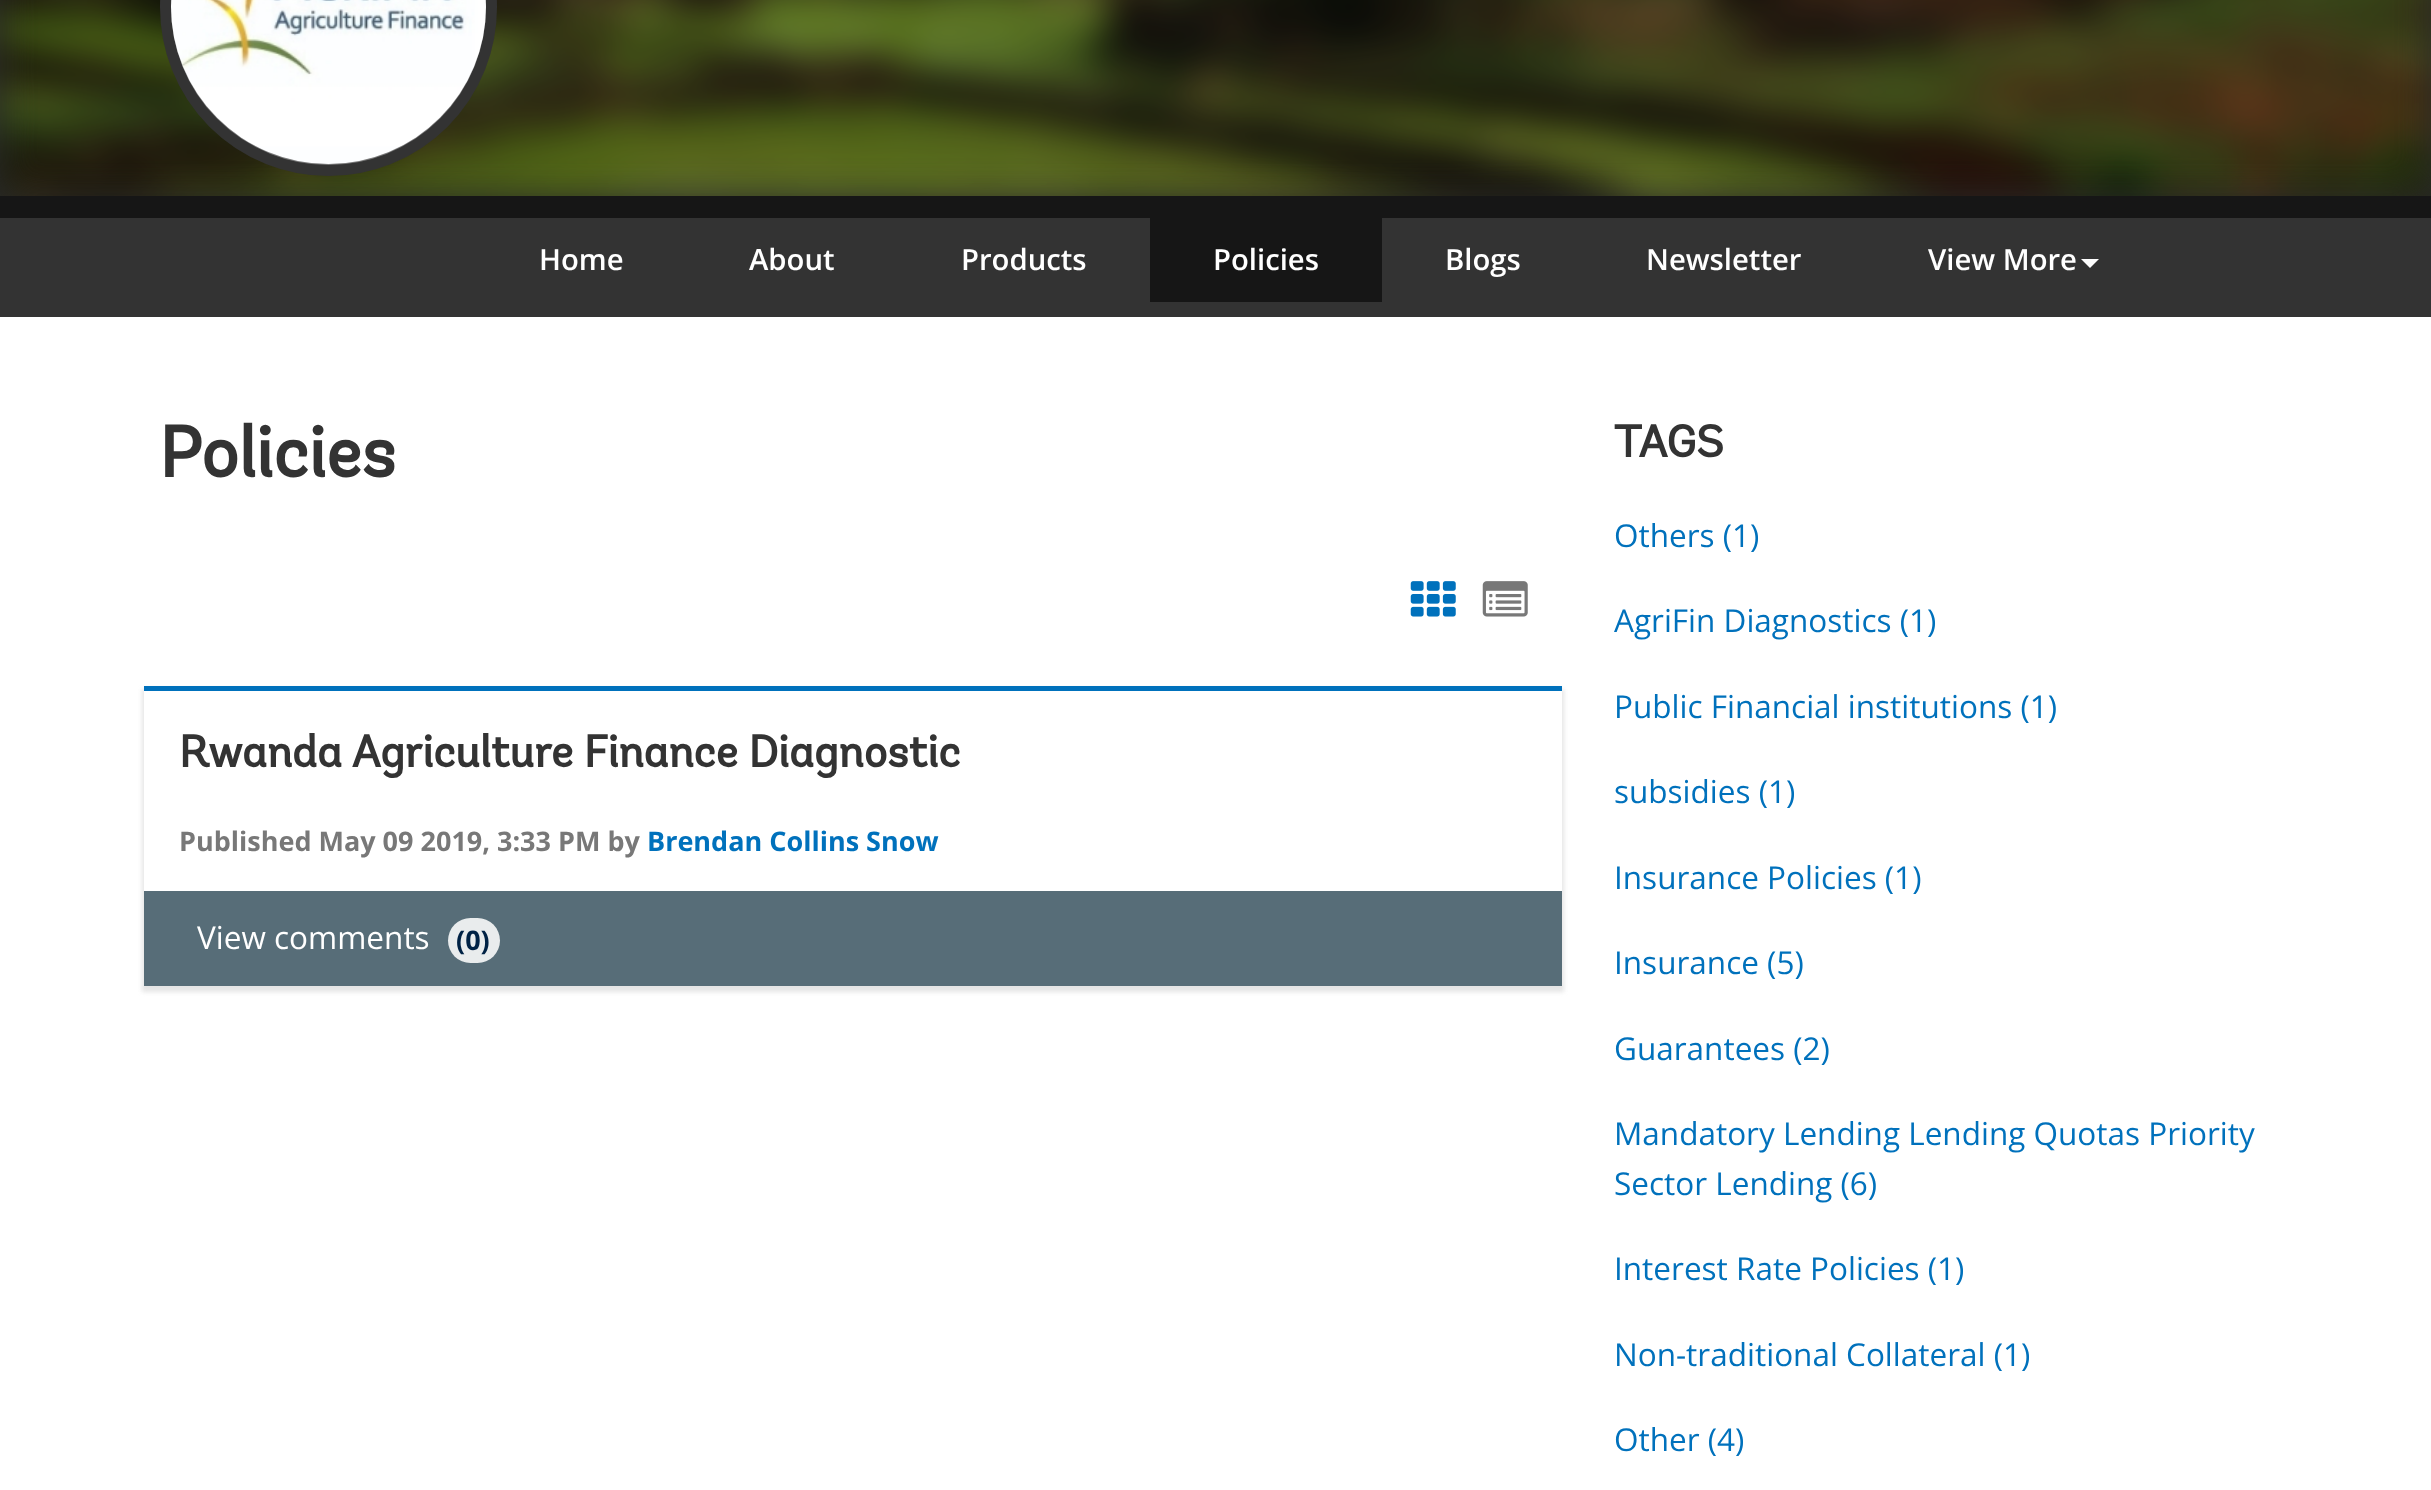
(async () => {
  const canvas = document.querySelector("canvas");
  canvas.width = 2431;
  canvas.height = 1490;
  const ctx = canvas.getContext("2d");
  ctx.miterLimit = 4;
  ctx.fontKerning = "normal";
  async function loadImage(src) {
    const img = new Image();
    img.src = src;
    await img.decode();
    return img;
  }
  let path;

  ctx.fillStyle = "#ffffff";
  ctx.fillRect(0, 0, 2431, 1490);
  ctx.fillStyle = "#292929";
  ctx.fillRect(0, 0, 2431, 196);
  ctx.drawImage(await loadImage("img/2.png"), 0, 0, 2431, 196);
  ctx.fillStyle = "#787878";
  ctx.beginPath();
  ctx.roundRect(165.5, -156.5, 326, 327, 163);
  ctx.fill();
  ctx.strokeStyle = "#333333";
  ctx.lineWidth = 11;
  ctx.stroke();
  ctx.drawImage(await loadImage("img/1.png"), 171, 0, 315, 164);
  for (const [x, y, w, h, color] of [
    [0, 218, 2431, 99, "#333333"],
    [0, 196, 2431, 22, "#161616"],
    [1150, 218, 232, 84, "#161616"],
  ]) {
    ctx.fillStyle = color;
    ctx.fillRect(x, y, w, h);
  }
  ctx.fillStyle = "#ffffff";
  path = new Path2D("M2081 259H2099L2090 268Z");
  ctx.fill(path);
  ctx.drawImage(await loadImage("img/3.png"), 1410, 581, 46, 36);
  ctx.drawImage(await loadImage("img/4.png"), 1482, 581, 46, 36);
  ctx.fillStyle = "#e5e5e5";
  ctx.filter = "blur(2px)";
  ctx.beginPath();
  ctx.rect(142, 689, 1422, 303);
  ctx.fill();
  ctx.filter = "none";
  for (const [x, y, w, h, color] of [
    [144, 691, 1418, 200, "#ffffff"],
    [144, 686, 1418, 5, "#0071bc"],
    [144, 891, 1418, 95, "#576d78"],
  ]) {
    ctx.fillStyle = color;
    ctx.fillRect(x, y, w, h);
  }
  ctx.fillStyle = "#e9eced";
  ctx.beginPath();
  ctx.roundRect(448, 918, 52, 45, 22.5);
  ctx.fill();
  ctx.font = "600 29.25px Open Sans";
  ctx.fillStyle = "#ffffff";
  for (const [text, x, y] of [
    ["Home", 539, 270],
    ["About", 749, 270],
    ["Products", 961, 270],
    ["Policies", 1213, 270],
    ["Blogs", 1445, 270],
    ["Newsletter", 1646, 270],
    ["View More", 1928, 270],
  ]) {
    ctx.fillText(text, x, y);
  }
  ctx.font = "bold 72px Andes";
  ctx.fillStyle = "#333333";
  ctx.fillText("Policies", 159, 477);
  ctx.font = "bold 45px Andes";
  ctx.fillText("Rwanda Agriculture Finance Diagnostic", 179, 767);
  ctx.font = "bold 27px Open Sans";
  ctx.fillStyle = "#787878";
  ctx.fillText("Published May 09 2019, 3:33 PM by", 179, 851);
  ctx.fillStyle = "#0071bc";
  ctx.fillText("Brendan Collins Snow", 647, 851);
  ctx.font = "31.5px Open Sans";
  ctx.fillStyle = "#ffffff";
  ctx.fillText("View comments", 197, 949);
  ctx.font = "bold 27px Open Sans";
  ctx.fillStyle = "#002245";
  ctx.fillText("(0)", 456, 950);
  ctx.font = "bold 45px Andes";
  ctx.fillStyle = "#333333";
  ctx.fillText("TAGS", 1614, 457);
  ctx.font = "31.5px Open Sans";
  ctx.fillStyle = "#0071bc";
  for (const [text, x, y] of [
    ["Others (1)", 1614, 547],
    ["AgriFin Diagnostics (1)", 1614, 632],
    ["Public Financial institutions (1)", 1614, 718],
    ["subsidies (1)", 1614, 803],
    ["Insurance Policies (1)", 1614, 889],
    ["Insurance (5)", 1614, 974],
    ["Guarantees (2)", 1614, 1060],
    ["Mandatory Lending Lending Quotas Priority", 1614, 1145],
    ["Sector Lending (6)", 1614, 1195],
    ["Interest Rate Policies (1)", 1614, 1280],
    ["Non-traditional Collateral (1)", 1614, 1366],
    ["Other (4)", 1614, 1451],
  ]) {
    ctx.fillText(text, x, y);
  }
})();
